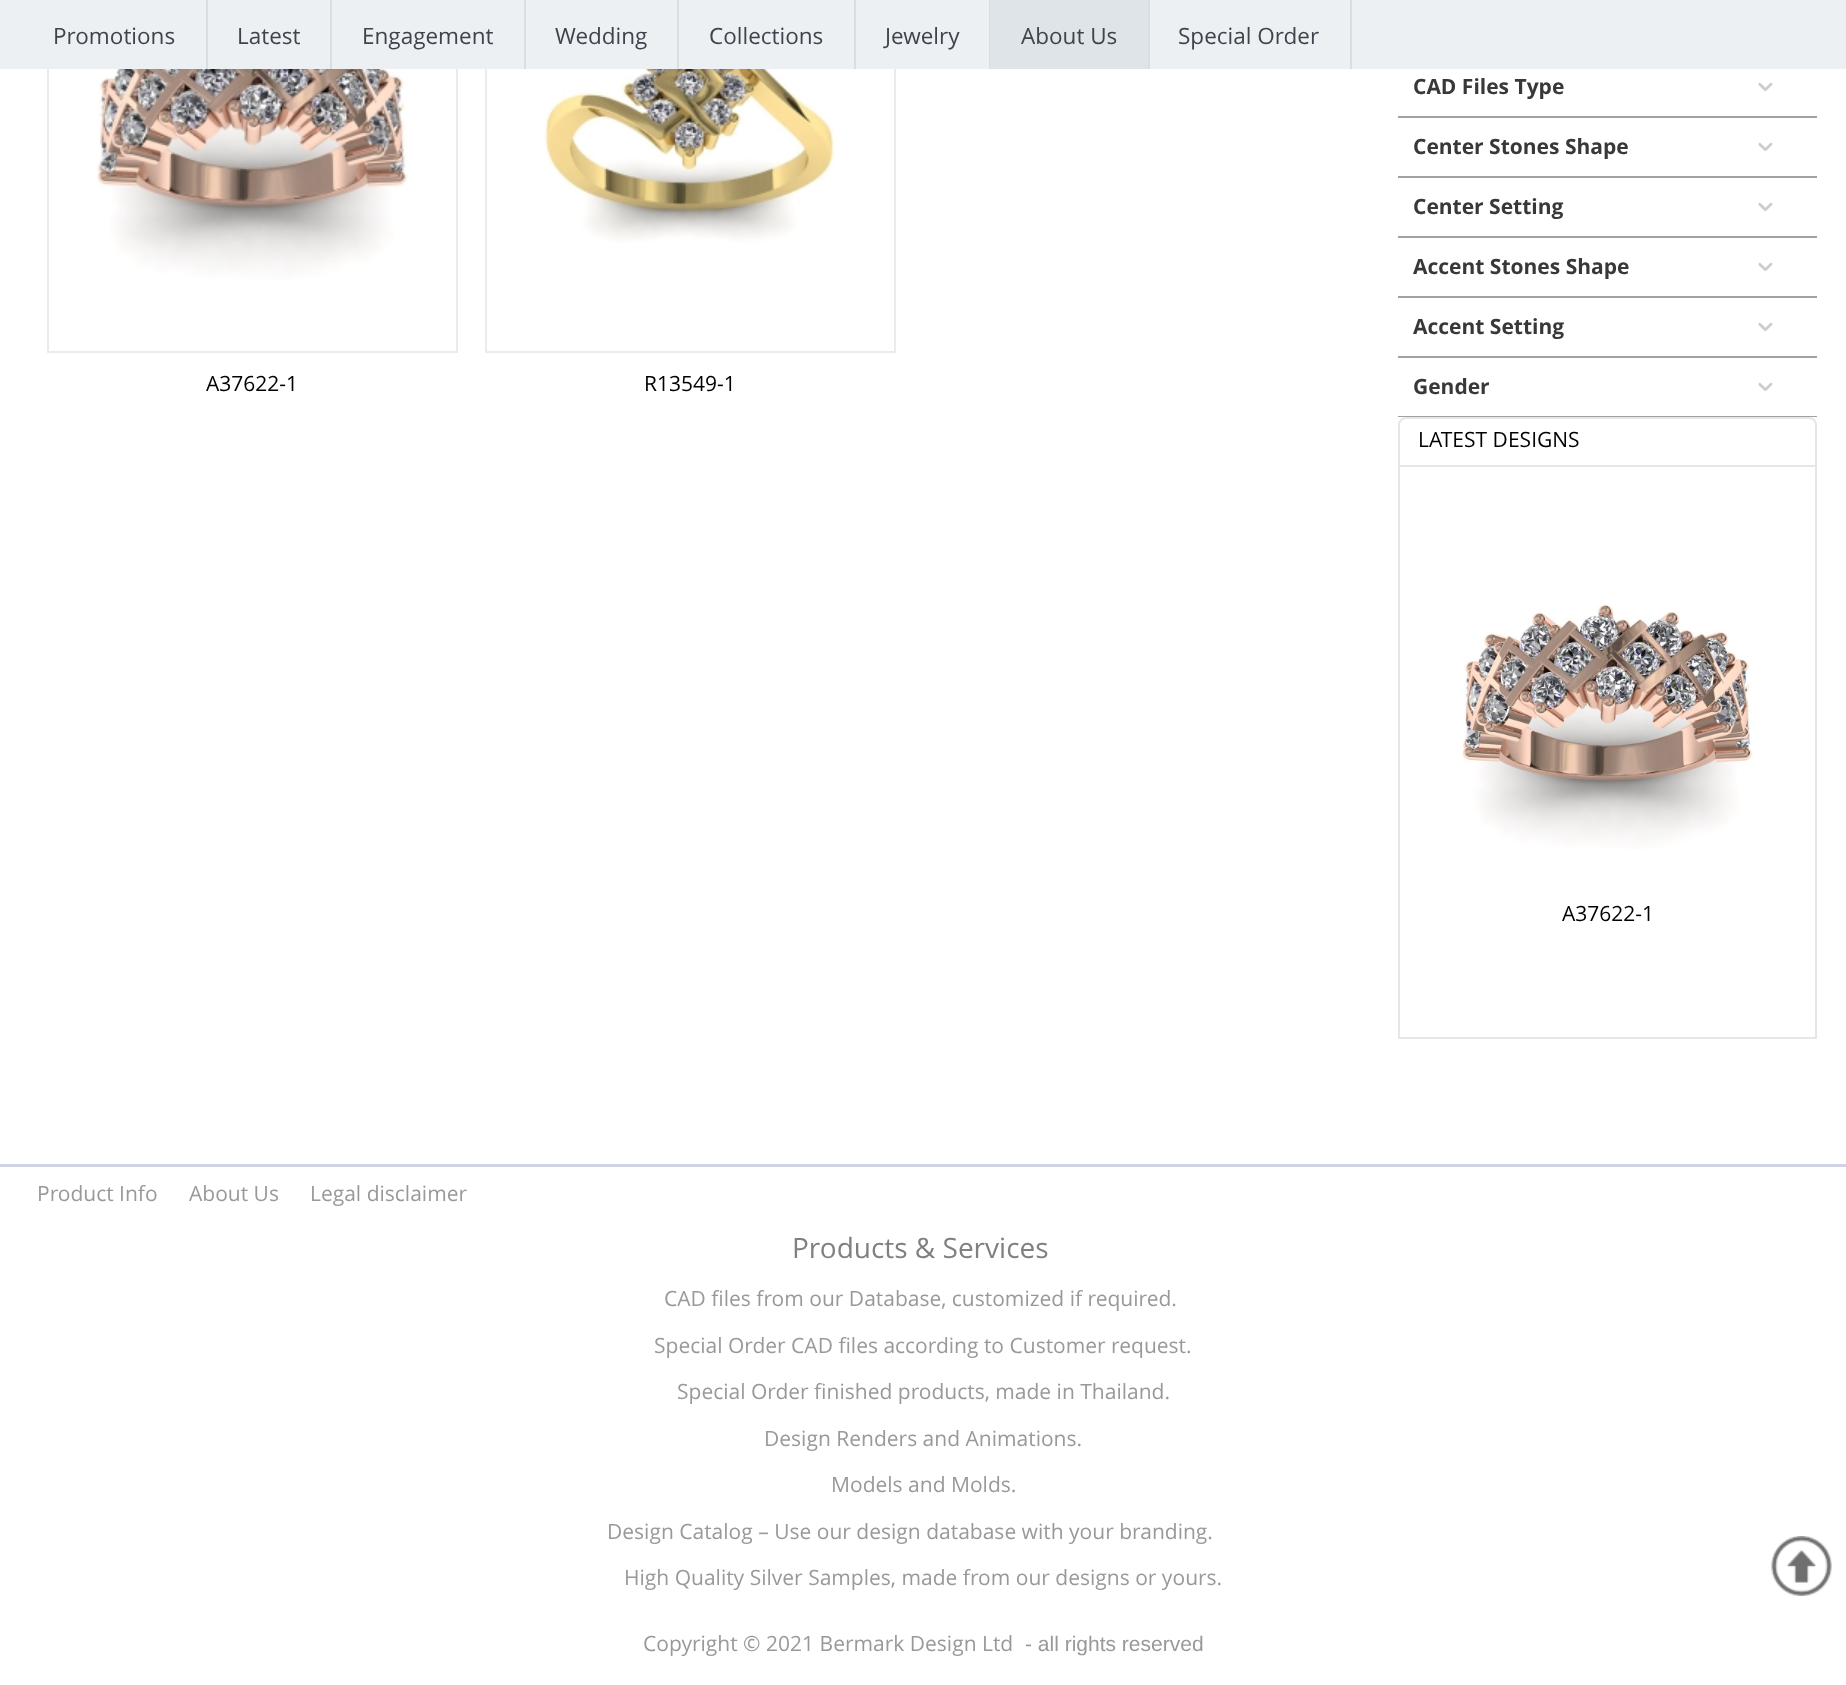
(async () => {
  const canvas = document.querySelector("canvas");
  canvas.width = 1846;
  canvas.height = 1685;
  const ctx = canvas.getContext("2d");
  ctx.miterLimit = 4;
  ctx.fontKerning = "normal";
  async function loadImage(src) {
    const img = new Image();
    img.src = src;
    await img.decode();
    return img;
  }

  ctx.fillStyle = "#ffffff";
  ctx.fillRect(0, 0, 1846, 1685);
  ctx.strokeStyle = "#ebebeb";
  ctx.lineWidth = 2;
  ctx.strokeRect(48, -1, 409, 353);
  ctx.strokeRect(486, -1, 409, 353);
  for (const [x, y, w, h, color] of [
    [0, 0, 1846, 69, "#edf0f2"],
    [206, 0, 2, 69, "#d8dfe3"],
    [330, 0, 2, 69, "#d8dfe3"],
    [524, 0, 2, 69, "#d8dfe3"],
    [677, 0, 2, 69, "#d8dfe3"],
    [854, 0, 2, 69, "#d8dfe3"],
    [989, 0, 1, 69, "#d8dfe3"],
    [1148, 0, 2, 69, "#d8dfe3"],
    [990, 0, 158, 69, "#dee4e7"],
    [1350, 0, 2, 69, "#d8dfe3"],
  ]) {
    ctx.fillStyle = color;
    ctx.fillRect(x, y, w, h);
  }
  ctx.drawImage(await loadImage("img/1.png"), 96, 69, 312, 211);
  ctx.drawImage(await loadImage("img/2.png"), 543, 69, 292, 175);
  ctx.fillStyle = "#a1a1a1";
  ctx.fillRect(1398, 116, 419, 2);
  ctx.drawImage(await loadImage("img/3.png"), 1758, 82, 15, 9);
  ctx.fillRect(1398, 176, 419, 2);
  ctx.drawImage(await loadImage("img/3.png"), 1758, 142, 15, 9);
  ctx.fillRect(1398, 236, 419, 2);
  ctx.drawImage(await loadImage("img/3.png"), 1758, 202, 15, 9);
  ctx.fillRect(1398, 296, 419, 2);
  ctx.drawImage(await loadImage("img/3.png"), 1758, 262, 15, 9);
  ctx.fillRect(1398, 356, 419, 2);
  ctx.drawImage(await loadImage("img/3.png"), 1758, 322, 15, 9);
  ctx.fillRect(1398, 416, 419, 1);
  ctx.drawImage(await loadImage("img/3.png"), 1758, 382, 15, 9);
  ctx.beginPath();
  ctx.roundRect(1399, 418, 417, 48, [7, 7, 0, 0]);
  ctx.strokeStyle = "#e6e6e6";
  ctx.stroke();
  for (const [x, y, w, h, color] of [
    [1815, 467, 2, 571, "#e6e6e6"],
    [1398, 1037, 419, 2, "#e6e6e6"],
    [1398, 467, 2, 571, "#e6e6e6"],
  ]) {
    ctx.fillStyle = color;
    ctx.fillRect(x, y, w, h);
  }
  ctx.drawImage(await loadImage("img/4.png"), 1462, 601, 292, 248);
  ctx.fillStyle = "#d1d4e4";
  ctx.fillRect(0, 1164, 1846, 3);
  ctx.drawImage(await loadImage("img/5.png"), 1771, 1536, 61, 60);
  ctx.font = "22.5px Open Sans";
  ctx.fillStyle = "#3f434d";
  for (const [text, x, y] of [
    ["Promotions", 53, 44],
    ["Latest", 237, 44],
    ["Engagement", 362, 44],
    ["Wedding", 555, 44],
    ["Collections", 709, 44],
    ["Jewelry", 885, 44],
    ["About Us", 1021, 44],
    ["Special Order", 1178, 44],
  ]) {
    ctx.fillText(text, x, y);
  }
  ctx.font = "21px Open Sans";
  ctx.fillStyle = "#000000";
  ctx.fillText("A37622-1", 206, 391);
  ctx.fillText("R13549-1", 644, 391);
  ctx.font = "bold 21px Open Sans";
  ctx.fillStyle = "#383838";
  for (const [text, x, y] of [
    ["CAD Files Type", 1413, 94],
    ["Center Stones Shape", 1413, 154],
    ["Center Setting", 1413, 214],
    ["Accent Stones Shape", 1413, 274],
    ["Accent Setting", 1413, 334],
    ["Gender", 1413, 394],
  ]) {
    ctx.fillText(text, x, y);
  }
  ctx.font = "21px Open Sans";
  ctx.fillStyle = "#000000";
  ctx.fillText("LATEST DESIGNS", 1418, 447);
  ctx.fillText("A37622-1", 1562, 921);
  ctx.fillStyle = "#999999";
  for (const [text, x, y] of [
    ["Product Info", 37, 1201],
    ["About Us", 189, 1201],
    ["Legal disclaimer", 310, 1201],
  ]) {
    ctx.fillText(text, x, y);
  }
  ctx.font = "28px Open Sans";
  ctx.fillStyle = "#808080";
  ctx.fillText("Products & Services", 792, 1258);
  ctx.font = "21px Open Sans";
  ctx.fillStyle = "#999999";
  for (const [text, x, y] of [
    ["CAD files from our Database, customized if required.", 664, 1306],
    ["Special Order CAD files according to Customer request.", 654, 1353],
    ["Special Order finished products, made in Thailand.", 677, 1399],
    ["Design Renders and Animations.", 764, 1446],
    ["Models and Molds.", 831, 1492],
    ["Design Catalog – Use our design database with your branding.", 607, 1539],
    ["High Quality Silver Samples, made from our designs or yours.", 624, 1585],
    ["Copyright © 2021 Bermark Design Ltd", 643, 1651],
  ]) {
    ctx.fillText(text, x, y);
  }
  ctx.font = "21px Liberation Sans";
  ctx.fillText("- all rights reserved", 1025, 1651);
})();
